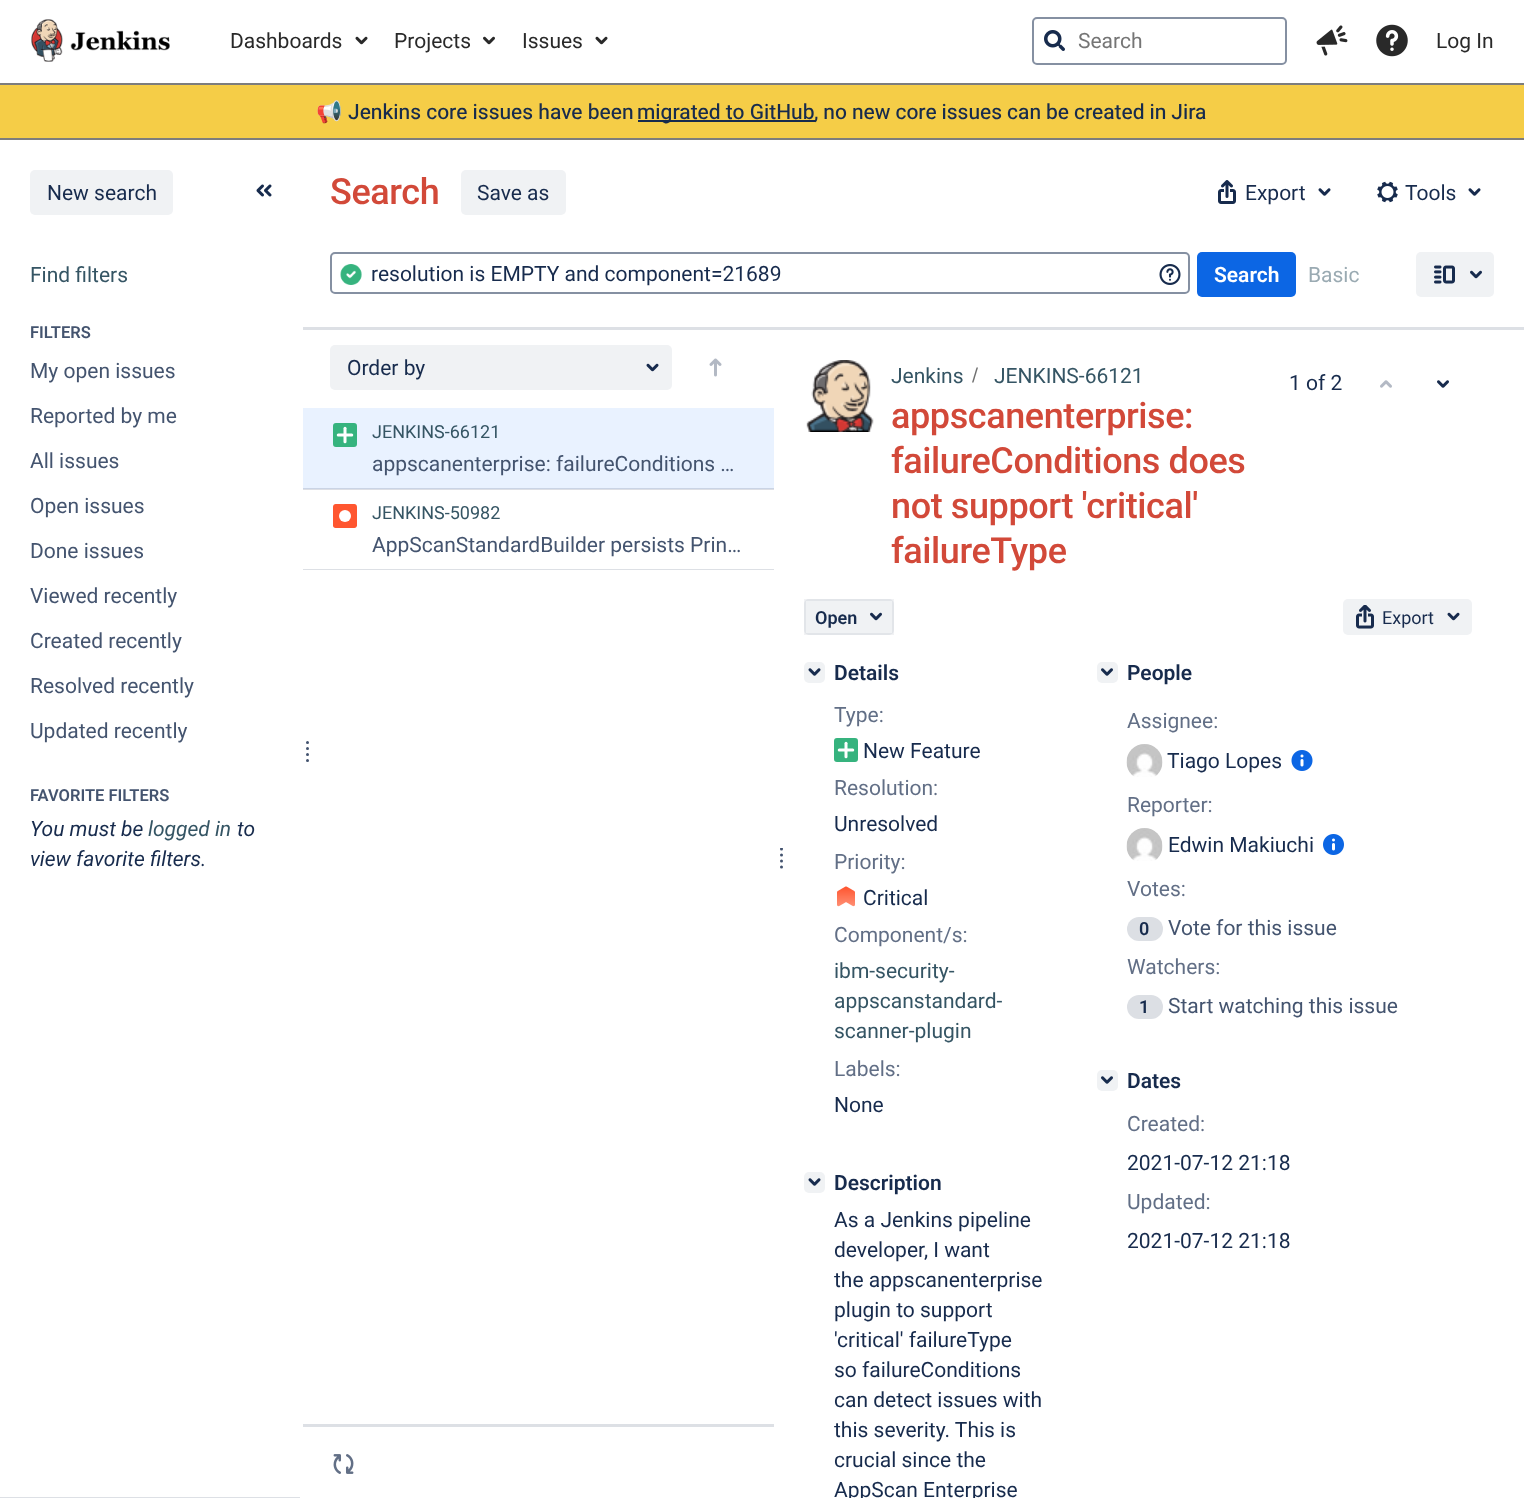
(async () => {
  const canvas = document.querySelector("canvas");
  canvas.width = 1524;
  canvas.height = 1498;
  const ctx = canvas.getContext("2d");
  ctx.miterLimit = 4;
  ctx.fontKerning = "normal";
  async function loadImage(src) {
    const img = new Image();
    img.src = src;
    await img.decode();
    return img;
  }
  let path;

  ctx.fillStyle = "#ffffff";
  ctx.fillRect(0, 0, 1524, 1498);
  ctx.fillStyle = "#dddfe5";
  ctx.fillRect(303, 489, 471, 1);
  ctx.fillStyle = "#7d7d7d";
  ctx.fillRect(0, 83, 1524, 2);
  ctx.drawImage(await loadImage("img/1.png"), 31, 19, 139, 43);
  ctx.drawImage(await loadImage("img/2.png"), 355, 36, 13, 9);
  ctx.drawImage(await loadImage("img/3.png"), 483, 36, 12, 9);
  ctx.drawImage(await loadImage("img/2.png"), 595, 36, 13, 9);
  ctx.beginPath();
  ctx.roundRect(1033, 18, 253, 46, 4);
  ctx.strokeStyle = "#8590a2";
  ctx.lineWidth = 2;
  ctx.stroke();
  ctx.drawImage(await loadImage("img/4.png"), 1044, 30, 21, 21);
  ctx.drawImage(await loadImage("img/5.png"), 1316, 25, 32, 31);
  ctx.drawImage(await loadImage("img/6.png"), 1376, 24, 32, 33);
  for (const [x, y, w, h, color] of [
    [0, 85, 1524, 53, "#f5cd47"],
    [0, 138, 1524, 2, "#7d7d7d"],
    [638, 120, 177, 2, "#172b4d"],
    [0, 1497, 300, 1, "#dde0e5"],
  ]) {
    ctx.fillStyle = color;
    ctx.fillRect(x, y, w, h);
  }
  ctx.fillStyle = "#f0f2f4";
  ctx.beginPath();
  ctx.roundRect(30, 170, 143, 45, 5);
  ctx.fill();
  ctx.drawImage(await loadImage("img/7.png"), 256, 184, 16, 13);
  for (const [x, y, w, h, color] of [
    [300, 327, 1224, 3, "#dde0e5"],
    [300, 1424, 474, 3, "#dde0e5"],
    [300, 327, 3, 1100, "#ffffff"],
  ]) {
    ctx.fillStyle = color;
    ctx.fillRect(x, y, w, h);
  }
  ctx.fillStyle = "#42526e";
  ctx.beginPath();
  ctx.arc(307.5, 742.5, 1.5, 0, Math.PI * 2);
  ctx.fill();
  ctx.beginPath();
  ctx.arc(307.5, 748.5, 1.5, 0, Math.PI * 2);
  ctx.fill();
  ctx.beginPath();
  ctx.arc(307.5, 754.5, 1.5, 0, Math.PI * 2);
  ctx.fill();
  ctx.beginPath();
  ctx.arc(307.5, 760.5, 1.5, 0, Math.PI * 2);
  ctx.fill();
  ctx.fillStyle = "#f0f2f4";
  ctx.beginPath();
  ctx.roundRect(461, 170, 105, 45, 5);
  ctx.fill();
  ctx.drawImage(await loadImage("img/8.png"), 1218, 180, 18, 24);
  ctx.drawImage(await loadImage("img/9.png"), 1318, 188, 13, 8);
  ctx.drawImage(await loadImage("img/10.png"), 1377, 181, 21, 22);
  ctx.drawImage(await loadImage("img/9.png"), 1468, 188, 13, 8);
  ctx.beginPath();
  ctx.roundRect(331, 253, 858, 40, 4);
  ctx.stroke();
  ctx.drawImage(await loadImage("img/11.png"), 340, 264, 22, 21);
  ctx.drawImage(await loadImage("img/12.png"), 1159, 264, 22, 21);
  ctx.fillStyle = "#0c66e4";
  ctx.beginPath();
  ctx.roundRect(1197, 252, 99, 45, 5);
  ctx.fill();
  ctx.fillStyle = "#f0f2f4";
  ctx.beginPath();
  ctx.roundRect(1416, 252, 78, 45, 5);
  ctx.fill();
  ctx.drawImage(await loadImage("img/13.png"), 1434, 265, 21, 19);
  ctx.drawImage(await loadImage("img/14.png"), 1470, 270, 12, 9);
  ctx.beginPath();
  ctx.roundRect(330, 345, 342, 45, 5);
  ctx.fill();
  ctx.drawImage(await loadImage("img/15.png"), 646, 363, 13, 9);
  ctx.drawImage(await loadImage("img/16.png"), 709, 358, 13, 19);
  ctx.fillStyle = "#e9f2ff";
  ctx.fillRect(303, 408, 471, 80);
  ctx.fillStyle = "#cad4e5";
  ctx.fillRect(303, 488, 471, 1);
  ctx.drawImage(await loadImage("img/17.png"), 333, 423, 24, 24);
  ctx.fillStyle = "#dde0e5";
  ctx.fillRect(303, 569, 471, 1);
  ctx.drawImage(await loadImage("img/18.png"), 333, 504, 24, 24);
  ctx.drawImage(await loadImage("img/19.png"), 333, 1454, 21, 20);
  ctx.save();
  ctx.beginPath();
  ctx.rect(780, 848, 3, 21);
  ctx.clip();
  ctx.fillStyle = "#42526e";
  ctx.beginPath();
  ctx.arc(781.5, 849, 1.5, 0, Math.PI * 2);
  ctx.fill();
  ctx.restore();
  ctx.fillStyle = "#42526e";
  ctx.beginPath();
  ctx.arc(781.5, 855, 1.5, 0, Math.PI * 2);
  ctx.fill();
  ctx.beginPath();
  ctx.arc(781.5, 861, 1.5, 0, Math.PI * 2);
  ctx.fill();
  ctx.beginPath();
  ctx.arc(781.5, 867, 1.5, 0, Math.PI * 2);
  ctx.fill();
  ctx.drawImage(await loadImage("img/20.png"), 806, 360, 68, 72);
  ctx.fillStyle = "#707070";
  path = new Path2D("M973.5 382.5L978 367.5H976.5L972 382.5Z");
  ctx.fill(path);
  ctx.fillStyle = "#f0f2f4";
  ctx.beginPath();
  ctx.roundRect(804, 599, 90, 36, 5);
  ctx.fill();
  ctx.strokeStyle = "rgba(9, 30, 66, 0.06)";
  ctx.strokeRect(805, 600, 88, 34);
  ctx.drawImage(await loadImage("img/14.png"), 870, 612, 12, 9);
  ctx.beginPath();
  ctx.roundRect(1343, 599, 129, 36, 5);
  ctx.fill();
  ctx.drawImage(await loadImage("img/21.png"), 1356, 605, 18, 24);
  ctx.drawImage(await loadImage("img/15.png"), 1447, 612, 13, 9);
  ctx.beginPath();
  ctx.roundRect(804, 662, 21, 21, 5);
  ctx.fill();
  ctx.drawImage(await loadImage("img/22.png"), 808, 668, 13, 8);
  ctx.drawImage(await loadImage("img/23.png"), 834, 738, 24, 24);
  ctx.drawImage(await loadImage("img/24.png"), 837, 886, 18, 21);
  ctx.beginPath();
  ctx.roundRect(804, 1172, 21, 21, 5);
  ctx.fill();
  ctx.drawImage(await loadImage("img/22.png"), 808, 1178, 13, 8);
  ctx.beginPath();
  ctx.roundRect(1097, 662, 21, 21, 5);
  ctx.fill();
  ctx.drawImage(await loadImage("img/25.png"), 1101, 668, 12, 8);
  ctx.drawImage(await loadImage("img/26.png"), 1126, 744, 37, 33);
  ctx.drawImage(await loadImage("img/27.png"), 1291, 750, 22, 21);
  ctx.drawImage(await loadImage("img/28.png"), 1126, 828, 37, 33);
  ctx.drawImage(await loadImage("img/29.png"), 1323, 834, 21, 21);
  ctx.fillStyle = "#dcdfe4";
  ctx.beginPath();
  ctx.roundRect(1127, 917, 36, 24, 12);
  ctx.fill();
  ctx.beginPath();
  ctx.roundRect(1127, 995, 36, 24, 12);
  ctx.fill();
  ctx.fillStyle = "#f0f2f4";
  ctx.beginPath();
  ctx.roundRect(1097, 1070, 21, 21, 5);
  ctx.fill();
  ctx.drawImage(await loadImage("img/25.png"), 1101, 1076, 12, 8);
  ctx.drawImage(await loadImage("img/30.png"), 1380, 380, 12, 8);
  ctx.drawImage(await loadImage("img/31.png"), 1437, 380, 12, 8);
  ctx.font = "21px 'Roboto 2'";
  ctx.fillStyle = "#292929";
  for (const [text, x, y] of [
    ["Dashboards", 230, 48],
    ["Projects", 394, 48],
    ["Issues", 522, 48],
  ]) {
    ctx.fillText(text, x, y);
  }
  ctx.fillStyle = "#757575";
  ctx.fillText("Search", 1078, 48);
  ctx.fillStyle = "#292929";
  ctx.fillText("Log In", 1436, 48);
  ctx.font = "21px Noto Color Emoji";
  ctx.fillStyle = "#172b4d";
  ctx.fillText("📢", 316, 119);
  ctx.font = "21px Roboto";
  ctx.fillText("Jenkins core issues have been", 348, 119);
  ctx.fillText("migrated to GitHub", 637, 119);
  ctx.wordSpacing = "-0.25px";
  ctx.fillText(", no new core issues can be created in Jira", 814, 119);
  ctx.wordSpacing = "0px";
  ctx.font = "21px 'Roboto 2'";
  ctx.fillText("New search", 47, 200);
  ctx.fillStyle = "#355564";
  ctx.fillText("Find filters", 30, 282);
  ctx.font = "600 16.5px Roboto";
  ctx.fillStyle = "#44546f";
  ctx.fillText("FILTERS", 30, 338);
  ctx.font = "21px 'Roboto 2'";
  for (const [text, x, y] of [
    ["My open issues", 30, 378],
    ["Reported by me", 30, 423],
    ["All issues", 30, 468],
    ["Open issues", 30, 513],
    ["Done issues", 30, 558],
    ["Viewed recently", 30, 603],
    ["Created recently", 30, 648],
    ["Resolved recently", 30, 693],
    ["Updated recently", 30, 738],
  ]) {
    ctx.fillText(text, x, y);
  }
  ctx.font = "600 16.5px Roboto";
  ctx.fillText("FAVORITE FILTERS", 30, 801);
  ctx.font = "italic 21px Roboto";
  ctx.fillStyle = "#172b4d";
  ctx.fillText("You must be", 30, 836);
  ctx.fillStyle = "#355564";
  ctx.fillText("logged in", 148, 836);
  ctx.fillStyle = "#172b4d";
  ctx.fillText("to", 237, 836);
  ctx.fillText("view favorite filters.", 30, 866);
  ctx.letterSpacing = "-0.4px";
  ctx.font = "500 36px Roboto";
  ctx.fillStyle = "#d24939";
  ctx.fillText("Search", 330, 204);
  ctx.letterSpacing = "0px";
  ctx.font = "21px 'Roboto 2'";
  ctx.fillStyle = "#172b4d";
  for (const [text, x, y] of [
    ["Save as", 477, 200],
    ["Export", 1245, 200],
    ["Tools", 1405, 200],
    ["resolution is EMPTY and component=21689", 371, 281],
  ]) {
    ctx.fillText(text, x, y);
  }
  ctx.font = "600 21px Roboto";
  ctx.fillStyle = "#ffffff";
  ctx.fillText("Search", 1214, 282);
  ctx.font = "21px 'Roboto 2'";
  ctx.fillStyle = "#9aaab2";
  ctx.fillText("Basic", 1308, 282);
  ctx.fillStyle = "#172b4d";
  ctx.fillText("Order by", 347, 375);
  ctx.font = "18px 'Roboto 2'";
  ctx.fillStyle = "#355564";
  ctx.fillText("JENKINS-66121", 372, 438);
  ctx.font = "21px 'Roboto 2'";
  ctx.fillStyle = "#44546f";
  ctx.fillText("appscanenterprise: failureConditions …", 372, 471);
  ctx.font = "18px 'Roboto 2'";
  ctx.fillStyle = "#355564";
  ctx.fillText("JENKINS-50982", 372, 519);
  ctx.font = "21px 'Roboto 2'";
  ctx.fillStyle = "#44546f";
  ctx.fillText("AppScanStandardBuilder persists Prin…", 372, 552);
  ctx.fillStyle = "#355564";
  ctx.fillText("Jenkins", 891, 383);
  ctx.fillText("JENKINS-66121", 994, 383);
  ctx.letterSpacing = "-0.4px";
  ctx.font = "500 36px Roboto";
  ctx.fillStyle = "#d24939";
  for (const [text, x, y] of [
    ["appscanenterprise:", 891, 428],
    ["failureConditions does", 891, 473],
    ["not support 'critical'", 891, 518],
    ["failureType", 891, 563],
  ]) {
    ctx.fillText(text, x, y);
  }
  ctx.letterSpacing = "0px";
  ctx.font = "600 18px Roboto";
  ctx.fillStyle = "#172b4d";
  ctx.fillText("Open", 815, 624);
  ctx.font = "18px 'Roboto 2'";
  ctx.fillText("Export", 1382, 624);
  ctx.font = "600 21px Roboto";
  ctx.fillText("Details", 834, 680);
  ctx.font = "21px 'Roboto 2'";
  ctx.fillStyle = "#626f86";
  ctx.fillText("Type:", 834, 722);
  ctx.fillStyle = "#172b4d";
  ctx.fillText("New Feature", 863, 758);
  ctx.fillStyle = "#626f86";
  ctx.fillText("Resolution:", 834, 795);
  ctx.fillStyle = "#172b4d";
  ctx.fillText("Unresolved", 834, 831);
  ctx.fillStyle = "#626f86";
  ctx.fillText("Priority:", 834, 869);
  ctx.fillStyle = "#172b4d";
  ctx.fillText("Critical", 863, 905);
  ctx.fillStyle = "#626f86";
  ctx.fillText("Component/s:", 834, 942);
  ctx.fillStyle = "#355564";
  for (const [text, x, y] of [
    ["ibm-security-", 834, 978],
    ["appscanstandard-", 834, 1008],
    ["scanner-plugin", 834, 1038],
  ]) {
    ctx.fillText(text, x, y);
  }
  ctx.fillStyle = "#626f86";
  ctx.fillText("Labels:", 834, 1076);
  ctx.fillStyle = "#172b4d";
  ctx.fillText("None", 834, 1112);
  ctx.font = "600 21px Roboto";
  ctx.fillText("Description", 834, 1190);
  ctx.font = "21px 'Roboto 2'";
  for (const [text, x, y] of [
    ["As a Jenkins pipeline", 834, 1227],
    ["developer, I want", 834, 1257],
    ["the appscanenterprise", 834, 1287],
    ["plugin to support", 834, 1317],
    ["'critical' failureType", 834, 1347],
    ["so failureConditions", 834, 1377],
    ["can detect issues with", 834, 1407],
    ["this severity. This is", 834, 1437],
    ["crucial since the", 834, 1467],
    ["AppScan Enterprise", 834, 1497],
  ]) {
    ctx.fillText(text, x, y);
  }
  ctx.font = "600 21px Roboto";
  ctx.fillText("People", 1127, 680);
  ctx.font = "21px 'Roboto 2'";
  ctx.fillStyle = "#626f86";
  ctx.fillText("Assignee:", 1127, 728);
  ctx.fillStyle = "#172b4d";
  ctx.fillText("Tiago Lopes", 1167, 768);
  ctx.fillStyle = "#626f86";
  ctx.fillText("Reporter:", 1127, 812);
  ctx.fillStyle = "#172b4d";
  ctx.fillText("Edwin Makiuchi", 1168, 852);
  ctx.fillStyle = "#626f86";
  ctx.fillText("Votes:", 1127, 896);
  ctx.font = "600 18px Roboto";
  ctx.fillStyle = "#172b4d";
  ctx.fillText("0", 1139, 935);
  ctx.font = "21px 'Roboto 2'";
  ctx.fillStyle = "#44546f";
  ctx.fillText("Vote for this issue", 1168, 935);
  ctx.fillStyle = "#626f86";
  ctx.fillText("Watchers:", 1127, 974);
  ctx.font = "600 18px Roboto";
  ctx.fillStyle = "#172b4d";
  ctx.fillText("1", 1139, 1013);
  ctx.font = "21px 'Roboto 2'";
  ctx.fillStyle = "#44546f";
  ctx.fillText("Start watching this issue", 1168, 1013);
  ctx.font = "600 21px Roboto";
  ctx.fillStyle = "#172b4d";
  ctx.fillText("Dates", 1127, 1088);
  ctx.font = "21px 'Roboto 2'";
  ctx.fillStyle = "#626f86";
  ctx.fillText("Created:", 1127, 1131);
  ctx.fillStyle = "#172b4d";
  ctx.fillText("2021-07-12 21:18", 1127, 1170);
  ctx.fillStyle = "#626f86";
  ctx.fillText("Updated:", 1127, 1209);
  ctx.fillStyle = "#172b4d";
  ctx.fillText("2021-07-12 21:18", 1127, 1248);
  ctx.fillText("1 of 2", 1289, 390);
})();
